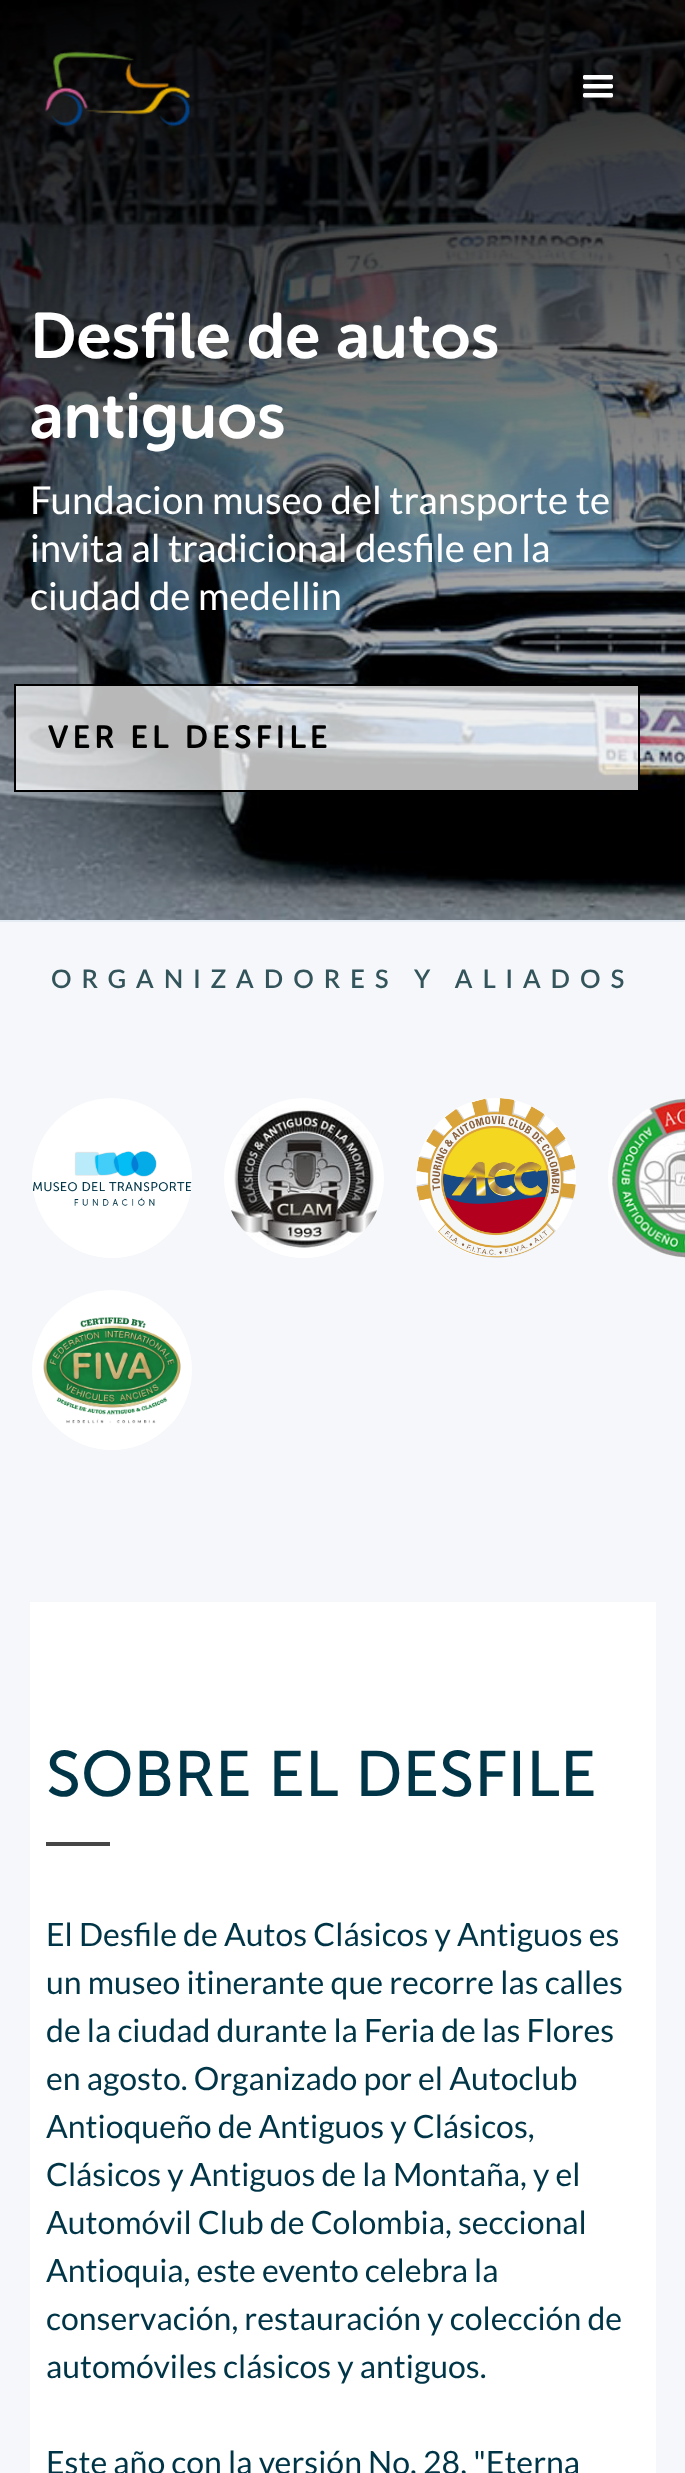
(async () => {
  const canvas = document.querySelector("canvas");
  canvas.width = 685;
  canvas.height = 2473;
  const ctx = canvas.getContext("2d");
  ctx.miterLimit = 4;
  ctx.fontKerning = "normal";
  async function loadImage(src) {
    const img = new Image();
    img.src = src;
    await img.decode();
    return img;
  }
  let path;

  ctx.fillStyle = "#f5f7fa";
  ctx.fillRect(0, 0, 685, 2473);
  ctx.drawImage(await loadImage("img/3.png"), 0, 0, 685, 920);
  ctx.drawImage(await loadImage("img/1.png"), 44, 51, 146, 76);
  ctx.drawImage(await loadImage("img/2.png"), 583, 75, 30, 23);
  ctx.fillStyle = "#e4ebf3";
  ctx.fillRect(0, 920, 685, 2);
  ctx.fillStyle = "rgba(255, 255, 255, 0.72)";
  ctx.beginPath();
  ctx.rect(15, 685, 624, 106);
  ctx.fill();
  ctx.strokeStyle = "#000000";
  ctx.lineWidth = 2;
  ctx.stroke();
  ctx.fillStyle = "#ffffff";
  ctx.beginPath();
  ctx.arc(112, 1178, 80, 0, Math.PI * 2);
  ctx.fill();
  ctx.drawImage(await loadImage("img/4.png"), 33, 1151, 159, 55);
  ctx.beginPath();
  ctx.arc(304, 1178, 80, 0, Math.PI * 2);
  ctx.fill();
  ctx.drawImage(await loadImage("img/5.png"), 231, 1108, 146, 140);
  ctx.beginPath();
  ctx.arc(496, 1178, 80, 0, Math.PI * 2);
  ctx.fill();
  ctx.drawImage(await loadImage("img/6.png"), 416, 1098, 160, 160);
  path = new Path2D("M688 1098H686V1258H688C644 1258 608 1222 608 1178C608 1134 644 1098 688 1098Z");
  ctx.fill(path);
  ctx.drawImage(await loadImage("img/7.png"), 612, 1098, 73, 160);
  ctx.beginPath();
  ctx.arc(112, 1370, 80, 0, Math.PI * 2);
  ctx.fill();
  ctx.drawImage(await loadImage("img/8.png"), 43, 1317, 138, 107);
  ctx.fillRect(30, 1602, 626, 871);
  ctx.fillStyle = "#464646";
  ctx.fillRect(46, 1842, 64, 4);
  ctx.font = "600 64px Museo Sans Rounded";
  ctx.fillStyle = "#ffffff";
  ctx.fillText("Desfile de autos", 30, 358);
  ctx.fillText("antiguos", 30, 438);
  ctx.font = "38.4px Lato";
  for (const [text, x, y] of [
    ["Fundacion museo del transporte te", 30, 514],
    ["invita al tradicional desfile en la", 30, 562],
    ["ciudad de medellin", 30, 610],
  ]) {
    ctx.fillText(text, x, y);
  }
  ctx.letterSpacing = "4px";
  ctx.font = "600 32px Museo Sans Rounded";
  ctx.fillStyle = "#000000";
  ctx.fillText("VER EL DESFILE", 48, 748);
  ctx.letterSpacing = "10px";
  ctx.font = "600 25.6px Lato";
  ctx.fillStyle = "#33545a";
  ctx.fillText("ORGANIZADORES Y ALIADOS", 51, 988);
  ctx.letterSpacing = "0px";
  ctx.font = "64px 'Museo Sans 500'";
  ctx.fillStyle = "#003547";
  ctx.fillText("SOBRE EL DESFILE", 46, 1796);
  ctx.font = "32px Lato";
  for (const [text, x, y] of [
    ["El Desfile de Autos Clásicos y Antiguos es", 46, 1946],
    ["un museo itinerante que recorre las calles", 46, 1994],
    ["de la ciudad durante la Feria de las Flores", 46, 2042],
    ["en agosto. Organizado por el Autoclub", 46, 2090],
    ["Antioqueño de Antiguos y Clásicos,", 46, 2138],
    ["Clásicos y Antiguos de la Montaña, y el", 46, 2186],
    ["Automóvil Club de Colombia, seccional", 46, 2234],
    ["Antioquia, este evento celebra la", 46, 2282],
    ["conservación, restauración y colección de", 46, 2330],
    ["automóviles clásicos y antiguos.", 46, 2378],
    ["Este año con la versión No. 28, \"Eterna", 46, 2474],
  ]) {
    ctx.fillText(text, x, y);
  }
})();
